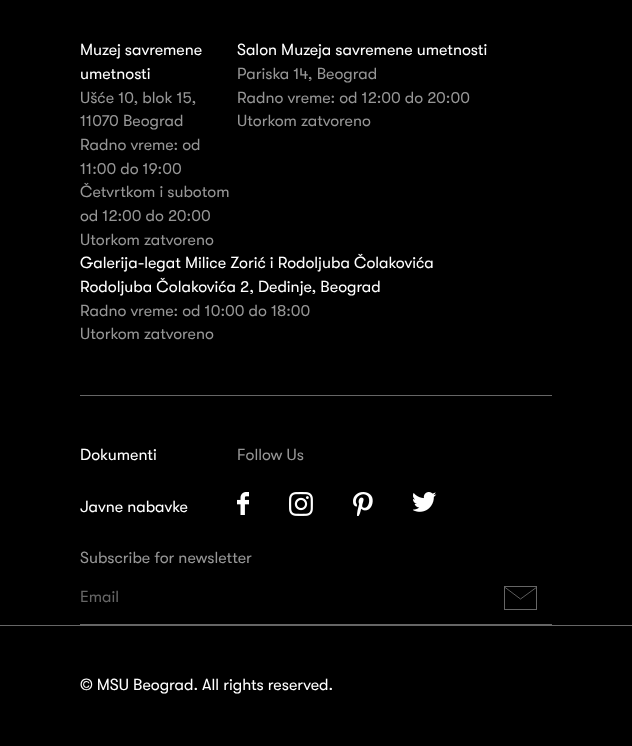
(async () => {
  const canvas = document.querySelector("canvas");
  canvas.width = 632;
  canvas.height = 746;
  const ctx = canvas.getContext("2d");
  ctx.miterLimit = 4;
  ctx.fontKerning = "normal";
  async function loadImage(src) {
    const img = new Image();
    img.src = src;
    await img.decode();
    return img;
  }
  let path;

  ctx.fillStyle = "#000000";
  ctx.fillRect(0, 0, 632, 746);
  ctx.fillStyle = "#666666";
  ctx.fillRect(80, 395, 472, 1);
  ctx.drawImage(await loadImage("img/1.png"), 237, 492, 12, 23);
  ctx.drawImage(await loadImage("img/2.png"), 289, 492, 24, 24);
  ctx.drawImage(await loadImage("img/3.png"), 353, 492, 20, 24);
  ctx.drawImage(await loadImage("img/4.png"), 413, 492, 24, 20);
  ctx.fillRect(80, 624, 472, 1);
  ctx.strokeStyle = "#666666";
  ctx.strokeRect(504.5, 586.5, 32, 23);
  path = new Path2D("M504.5 587L520.5 599L537 587");
  ctx.lineWidth = 0.9;
  ctx.stroke(path);
  ctx.fillRect(0, 625, 632, 1);
  ctx.font = "16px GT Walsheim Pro";
  ctx.fillStyle = "#ffffff";
  ctx.fillText("Muzej savremene", 80, 55);
  ctx.fillText("umetnosti", 80, 79);
  ctx.fillStyle = "#969696";
  for (const [text, x, y] of [
    ["Ušće 10, blok 15,", 80, 103],
    ["11070 Beograd", 80, 126],
    ["Radno vreme: od", 80, 150],
    ["11:00 do 19:00", 80, 174],
    ["Četvrtkom i subotom", 80, 197],
    ["od 12:00 do 20:00", 80, 221],
    ["Utorkom zatvoreno", 80, 245],
  ]) {
    ctx.fillText(text, x, y);
  }
  ctx.fillStyle = "#ffffff";
  ctx.fillText("Salon Muzeja savremene umetnosti", 237, 55);
  ctx.fillStyle = "#969696";
  for (const [text, x, y] of [
    ["Pariska 14, Beograd", 237, 79],
    ["Radno vreme: od 12:00 do 20:00", 237, 103],
    ["Utorkom zatvoreno", 237, 126],
  ]) {
    ctx.fillText(text, x, y);
  }
  ctx.fillStyle = "#ffffff";
  ctx.fillText("Galerija-legat Milice Zorić i Rodoljuba Čolakovića", 80, 268);
  ctx.fillText("Rodoljuba Čolakovića 2, Dedinje, Beograd", 80, 292);
  ctx.fillStyle = "#969696";
  ctx.fillText("Radno vreme: od 10:00 do 18:00", 80, 316);
  ctx.fillText("Utorkom zatvoreno", 80, 339);
  ctx.fillStyle = "#ffffff";
  ctx.fillText("Dokumenti", 80, 460);
  ctx.fillText("Javne nabavke", 80, 512);
  ctx.fillStyle = "#969696";
  ctx.fillText("Follow Us", 237, 460);
  ctx.fillText("Subscribe for newsletter", 80, 563);
  ctx.fillStyle = "#666666";
  ctx.fillText("Email", 80, 602);
  ctx.fillStyle = "#ffffff";
  ctx.fillText("© MSU Beograd. All rights reserved.", 80, 690);
})();
